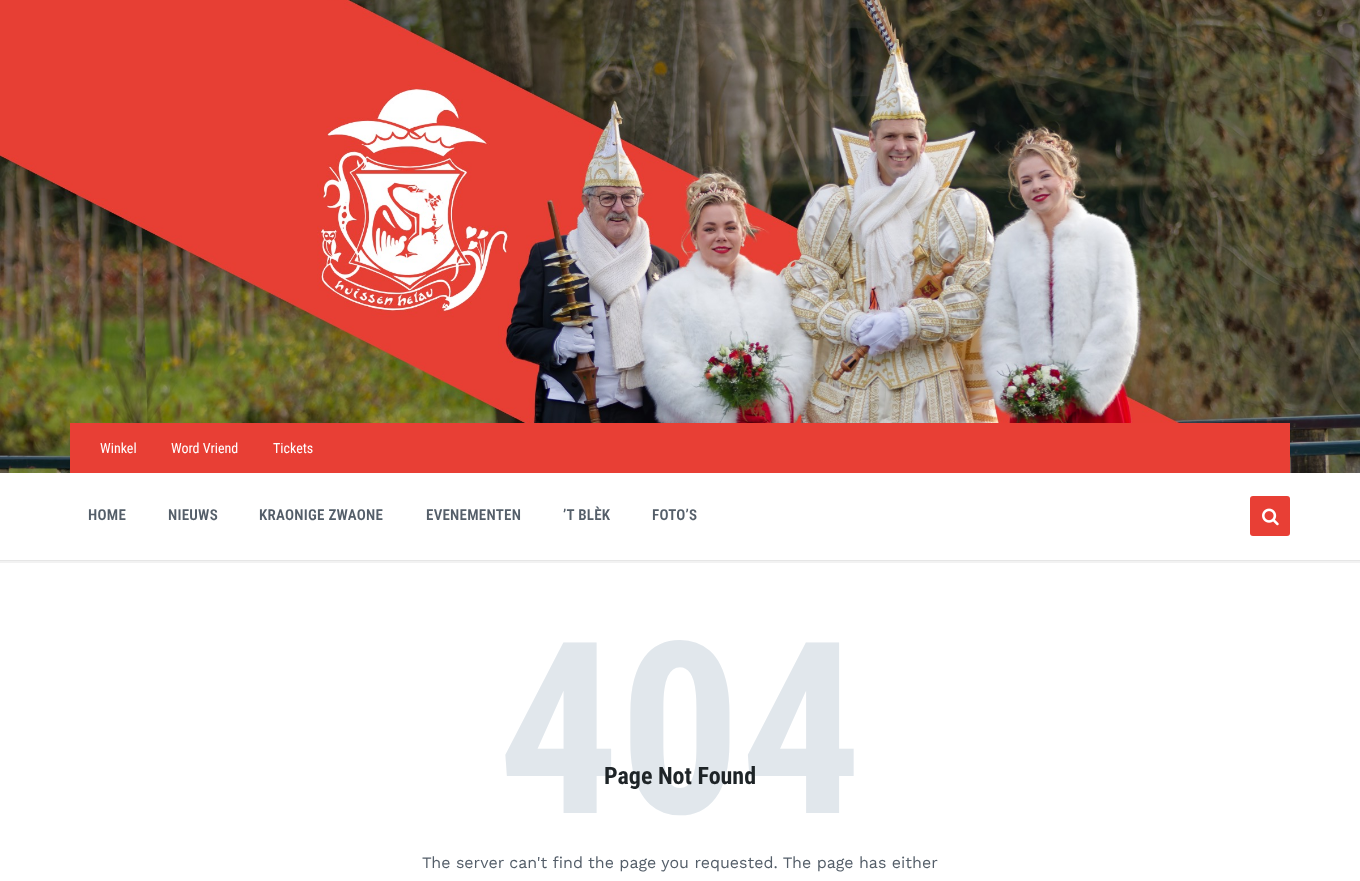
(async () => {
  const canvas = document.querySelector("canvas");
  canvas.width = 1360;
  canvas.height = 881;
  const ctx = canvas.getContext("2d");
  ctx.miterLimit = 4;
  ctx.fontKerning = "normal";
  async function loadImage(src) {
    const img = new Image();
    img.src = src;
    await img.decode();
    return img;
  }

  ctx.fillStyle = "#ffffff";
  ctx.fillRect(0, 0, 1360, 881);
  ctx.strokeStyle = "#f2f2f2";
  ctx.lineWidth = 2;
  ctx.strokeRect(-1, 472, 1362, 90);
  ctx.drawImage(await loadImage("img/1.png"), 0, 0, 1360, 473);
  ctx.fillStyle = "#e83f35";
  ctx.fillRect(70, 423, 1220, 50);
  ctx.fillStyle = "#e6e6e6";
  ctx.fillRect(0, 560, 1360, 1);
  ctx.fillStyle = "#e83f35";
  ctx.beginPath();
  ctx.roundRect(1250, 496, 40, 40, 3);
  ctx.fill();
  ctx.drawImage(await loadImage("img/2.png"), 1262, 508, 17, 18);
  ctx.font = "14px Roboto Condensed";
  ctx.fillStyle = "#ffffff";
  for (const [text, x, y] of [
    ["Winkel", 100, 453],
    ["Word Vriend", 171, 453],
    ["Tickets", 273, 453],
  ]) {
    ctx.fillText(text, x, y);
  }
  ctx.letterSpacing = "0.25px";
  ctx.font = "600 15px Roboto Condensed";
  ctx.fillStyle = "#545e69";
  for (const [text, x, y] of [
    ["HOME", 88, 520],
    ["NIEUWS", 168, 520],
    ["KRAONIGE ZWAONE", 259, 520],
    ["EVENEMENTEN", 426, 520],
    ["’T BLÈK", 563, 520],
    ["FOTO’S", 652, 520],
  ]) {
    ctx.fillText(text, x, y);
  }
  ctx.letterSpacing = "0px";
  ctx.font = "bold 240px Roboto Condensed";
  ctx.fillStyle = "#e1e7ec";
  ctx.fillText("404", 498, 813);
  ctx.font = "bold 24px Roboto Condensed";
  ctx.fillStyle = "#1e2427";
  ctx.fillText("Page Not Found", 604, 784);
  ctx.font = "16px Work Sans";
  ctx.fillStyle = "#545e69";
  ctx.fillText("The server can't find the page you requested. The page has either", 422, 868);
})();
